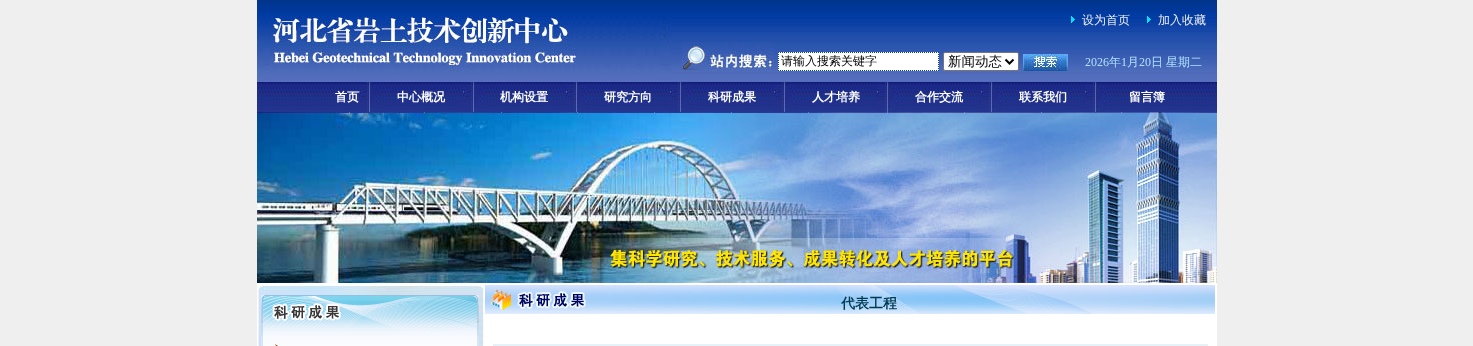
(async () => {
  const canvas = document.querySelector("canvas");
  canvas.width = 1473;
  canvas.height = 346;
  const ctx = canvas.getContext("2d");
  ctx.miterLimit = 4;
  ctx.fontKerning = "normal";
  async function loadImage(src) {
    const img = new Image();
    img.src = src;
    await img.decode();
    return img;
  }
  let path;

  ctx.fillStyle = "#efefef";
  ctx.fillRect(0, 0, 1473, 346);
  ctx.drawImage(await loadImage("img/1.png"), 257, 0, 423, 82);
  ctx.drawImage(await loadImage("img/2.png"), 257, 16, 414, 66);
  ctx.drawImage(await loadImage("img/3.png"), 680, 0, 537, 82);
  ctx.drawImage(await loadImage("img/4.png"), 1071, 16, 4, 7);
  ctx.drawImage(await loadImage("img/4.png"), 1147, 16, 4, 7);
  ctx.drawImage(await loadImage("img/5.png"), 682, 42, 92, 29);
  ctx.fillStyle = "#ffffff";
  ctx.fillRect(778, 52, 161, 19);
  path = new Path2D("M778 52.5H939");
  ctx.strokeStyle = "#0644a5";
  ctx.setLineDash([1, 1]);
  ctx.stroke(path);
  path = new Path2D("M938.5 52V71");
  ctx.stroke(path);
  path = new Path2D("M778 70.5H939");
  ctx.stroke(path);
  path = new Path2D("M778.5 52V71");
  ctx.stroke(path);
  ctx.beginPath();
  ctx.roundRect(943.5, 52.5, 75, 18, 1.5);
  ctx.fill();
  ctx.strokeStyle = "#767676";
  ctx.setLineDash([]);
  ctx.stroke();
  path = new Path2D("M1005.5 59.5L1009.5 63.5L1013.5 59.5");
  ctx.strokeStyle = "#000000";
  ctx.lineWidth = 2;
  ctx.stroke(path);
  ctx.drawImage(await loadImage("img/6.png"), 1023, 54, 45, 17);
  ctx.drawImage(await loadImage("img/7.png"), 257, 82, 18, 30);
  ctx.drawImage(await loadImage("img/8.png"), 275, 82, 84, 30);
  ctx.drawImage(await loadImage("img/9.png"), 359, 82, 20, 30);
  ctx.drawImage(await loadImage("img/8.png"), 379, 82, 84, 30);
  ctx.drawImage(await loadImage("img/9.png"), 463, 82, 20, 30);
  ctx.drawImage(await loadImage("img/10.png"), 483, 82, 83, 30);
  ctx.drawImage(await loadImage("img/9.png"), 566, 82, 20, 30);
  ctx.drawImage(await loadImage("img/8.png"), 586, 82, 84, 30);
  ctx.drawImage(await loadImage("img/9.png"), 670, 82, 20, 30);
  ctx.drawImage(await loadImage("img/8.png"), 690, 82, 84, 30);
  ctx.drawImage(await loadImage("img/9.png"), 774, 82, 20, 30);
  ctx.drawImage(await loadImage("img/10.png"), 794, 82, 83, 30);
  ctx.drawImage(await loadImage("img/9.png"), 877, 82, 20, 30);
  ctx.drawImage(await loadImage("img/8.png"), 897, 82, 84, 30);
  ctx.drawImage(await loadImage("img/9.png"), 981, 82, 20, 30);
  ctx.drawImage(await loadImage("img/8.png"), 1001, 82, 84, 30);
  ctx.drawImage(await loadImage("img/9.png"), 1085, 82, 20, 30);
  ctx.drawImage(await loadImage("img/8.png"), 1105, 82, 84, 30);
  ctx.drawImage(await loadImage("img/11.png"), 1189, 82, 28, 30);
  ctx.drawImage(await loadImage("img/12.png"), 257, 112, 960, 171);
  ctx.fillRect(257, 283, 960, 63);
  ctx.drawImage(await loadImage("img/13.png"), 257, 285, 227, 10);
  ctx.drawImage(await loadImage("img/14.png"), 258, 295, 226, 51);
  ctx.drawImage(await loadImage("img/15.png"), 261, 295, 218, 51);
  ctx.drawImage(await loadImage("img/16.png"), 275, 344, 4, 2);
  ctx.drawImage(await loadImage("img/17.png"), 485, 285, 730, 29);
  ctx.drawImage(await loadImage("img/18.png"), 490, 289, 96, 21);
  ctx.fillStyle = "#e7f1f8";
  ctx.fillRect(493, 344, 715, 2);
  ctx.font = "500 12px WenQuanYi Zen Hei";
  ctx.fillStyle = "#efefef";
  ctx.fillText("设为首页", 1082, 24);
  ctx.fillText("加入收藏", 1158, 24);
  ctx.fillStyle = "#000000";
  ctx.fillText("请输入搜索关键字", 781, 65);
  ctx.font = "500 13.5px WenQuanYi Zen Hei";
  ctx.fillText("新闻动态", 948, 66);
  ctx.font = "12px Liberation Serif";
  ctx.fillStyle = "#b1e1ff";
  ctx.fillText("2026", 1085, 66);
  ctx.font = "500 12px WenQuanYi Zen Hei";
  ctx.fillText("年", 1109, 66);
  ctx.font = "12px Liberation Serif";
  ctx.fillText("1", 1121, 66);
  ctx.font = "500 12px WenQuanYi Zen Hei";
  ctx.fillText("月", 1127, 66);
  ctx.font = "12px Liberation Serif";
  ctx.fillText("20", 1139, 66);
  ctx.font = "500 12px WenQuanYi Zen Hei";
  ctx.fillText("日", 1151, 66);
  ctx.fillText("星期二", 1166, 66);
  ctx.font = "bold 12px WenQuanYi Zen Hei";
  ctx.fillStyle = "#ffffff";
  for (const [text, x, y] of [
    ["首页", 335, 101],
    ["中心概况", 397, 101],
    ["机构设置", 500, 101],
    ["研究方向", 604, 101],
    ["科研成果", 708, 101],
    ["人才培养", 812, 101],
    ["合作交流", 915, 101],
    ["联系我们", 1019, 101],
    ["留言簿", 1129, 101],
  ]) {
    ctx.fillText(text, x, y);
  }
  ctx.font = "bold 14px WenQuanYi Zen Hei";
  ctx.fillStyle = "#013b51";
  ctx.fillText("代表工程", 841, 308);
})();
